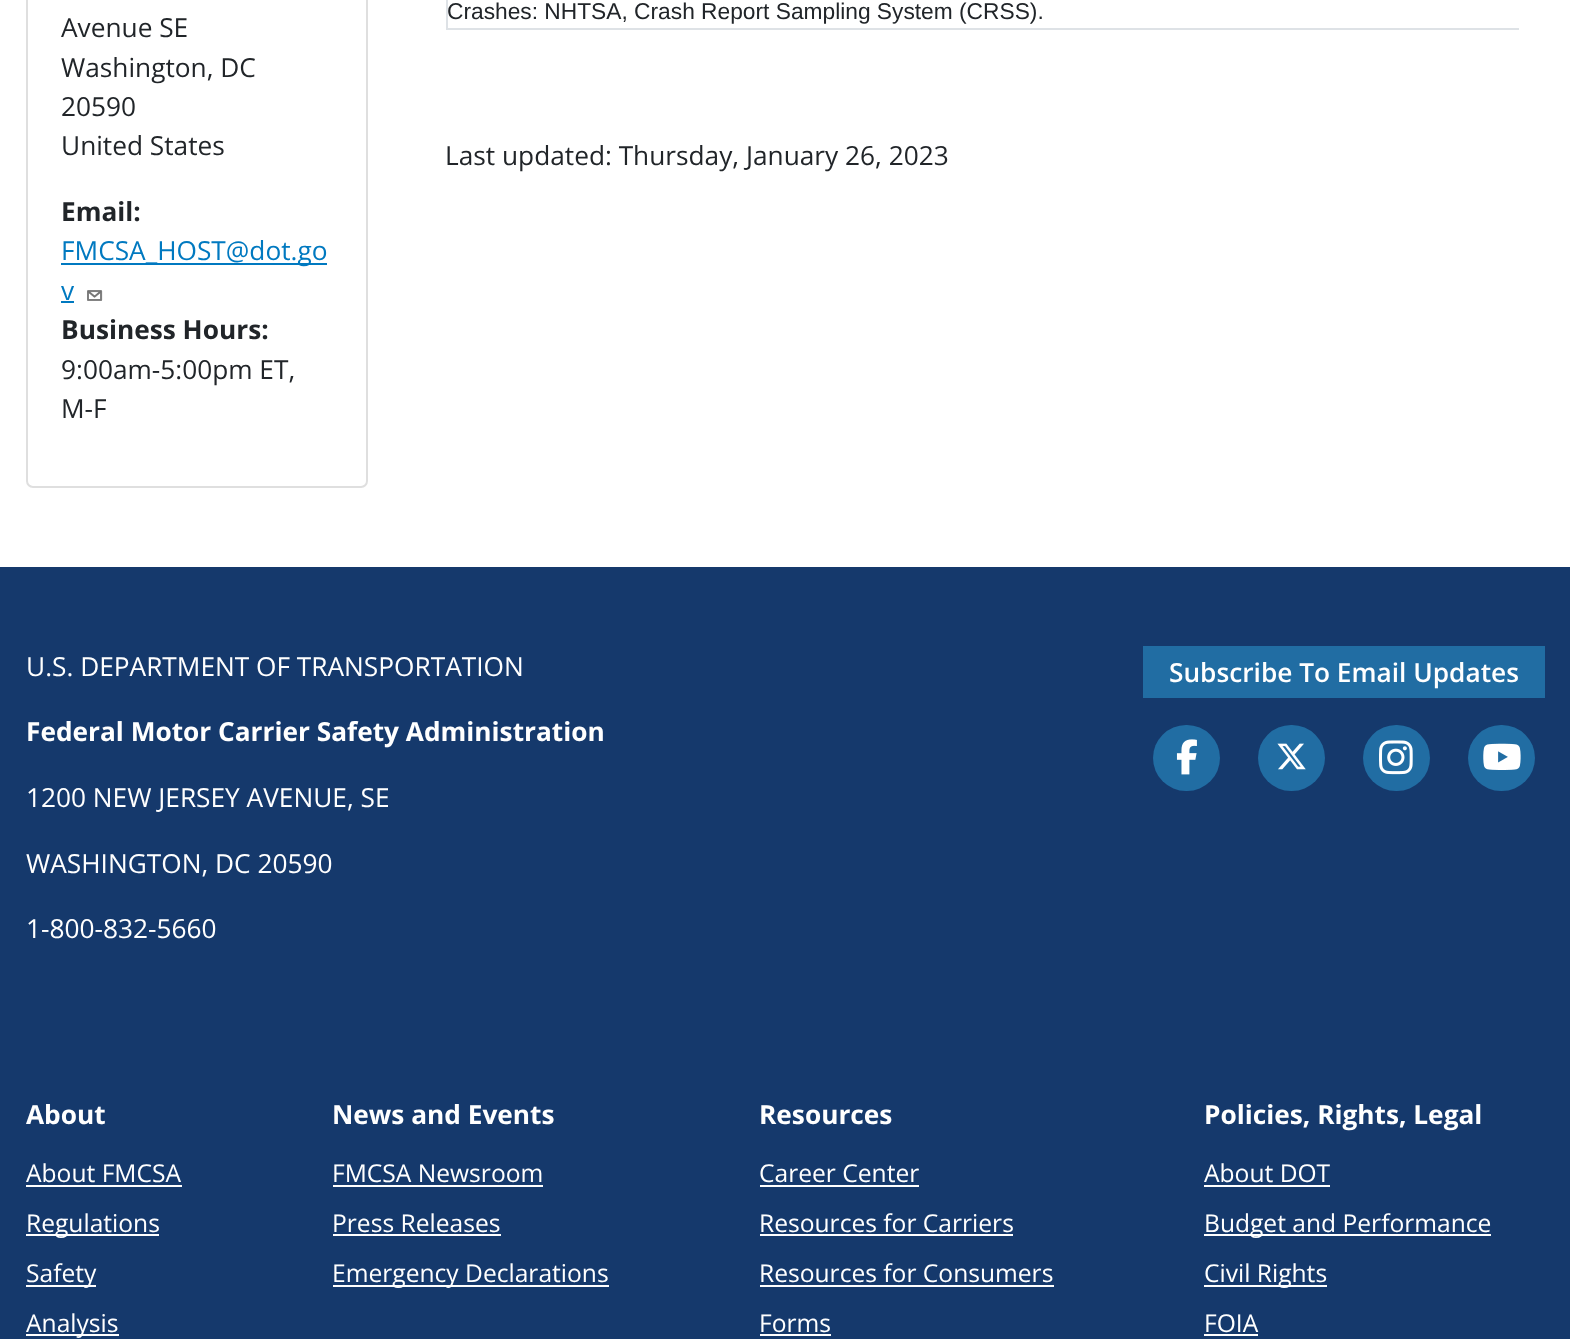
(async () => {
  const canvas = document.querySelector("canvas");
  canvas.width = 1570;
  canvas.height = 1339;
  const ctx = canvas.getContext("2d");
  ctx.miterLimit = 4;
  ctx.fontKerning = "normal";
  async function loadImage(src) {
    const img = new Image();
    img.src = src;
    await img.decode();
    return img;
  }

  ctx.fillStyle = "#ffffff";
  ctx.fillRect(0, 0, 1570, 1339);
  ctx.beginPath();
  ctx.roundRect(27, -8, 340, 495, 6);
  ctx.strokeStyle = "#dfdfdf";
  ctx.lineWidth = 2;
  ctx.stroke();
  ctx.fillStyle = "#0079c0";
  ctx.fillRect(61, 263, 266, 2);
  ctx.fillRect(61, 301, 13, 2);
  ctx.drawImage(await loadImage("img/1.png"), 87, 290, 16, 11);
  for (const [x, y, w, h, color] of [
    [446, 28, 1073, 2, "#dee2e6"],
    [446, 0, 2, 30, "#dee2e6"],
    [0, 567, 1570, 772, "#15396c"],
    [1143, 646, 402, 52, "#216da3"],
  ]) {
    ctx.fillStyle = color;
    ctx.fillRect(x, y, w, h);
  }
  ctx.beginPath();
  ctx.roundRect(1153, 725, 67, 66, 33);
  ctx.fill();
  ctx.drawImage(await loadImage("img/2.png"), 1176, 739, 21, 36);
  ctx.beginPath();
  ctx.roundRect(1258, 725, 67, 66, 33);
  ctx.fill();
  ctx.drawImage(await loadImage("img/3.png"), 1277, 743, 29, 27);
  ctx.beginPath();
  ctx.roundRect(1363, 725, 67, 66, 33);
  ctx.fill();
  ctx.drawImage(await loadImage("img/4.png"), 1379, 740, 34, 35);
  ctx.beginPath();
  ctx.roundRect(1468, 725, 67, 66, 33);
  ctx.fill();
  ctx.drawImage(await loadImage("img/5.png"), 1483, 743, 38, 27);
  for (const [x, y, w, h, color] of [
    [26, 1185, 156, 2, "#ffffff"],
    [26, 1234, 133, 2, "#ffffff"],
    [26, 1285, 70, 2, "#ffffff"],
    [26, 1334, 93, 2, "#ffffff"],
    [333, 1185, 210, 2, "#ffffff"],
    [333, 1234, 168, 2, "#ffffff"],
    [333, 1285, 276, 2, "#ffffff"],
    [760, 1185, 159, 2, "#ffffff"],
    [760, 1234, 253, 2, "#ffffff"],
    [760, 1285, 294, 2, "#ffffff"],
    [760, 1334, 71, 2, "#ffffff"],
    [1204, 1185, 126, 2, "#ffffff"],
    [1204, 1234, 287, 2, "#ffffff"],
    [1204, 1285, 123, 2, "#ffffff"],
    [1204, 1334, 54, 2, "#ffffff"],
  ]) {
    ctx.fillStyle = color;
    ctx.fillRect(x, y, w, h);
  }
  ctx.font = "26.25px Open Sans";
  ctx.fillStyle = "#212529";
  for (const [text, x, y] of [
    ["Avenue SE", 61, 37],
    ["Washington, DC", 61, 77],
    ["20590", 61, 116],
    ["United States", 61, 155],
  ]) {
    ctx.fillText(text, x, y);
  }
  ctx.font = "bold 26.25px Open Sans";
  ctx.fillText("Email:", 61, 221);
  ctx.font = "26.25px Open Sans";
  ctx.fillStyle = "#0079c0";
  ctx.fillText("FMCSA_HOST@dot.go", 61, 260);
  ctx.fillText("v", 61, 300);
  ctx.font = "bold 26.25px Open Sans";
  ctx.fillStyle = "#212529";
  ctx.fillText("Business Hours:", 61, 339);
  ctx.font = "26.25px Open Sans";
  ctx.fillText("9:00am-5:00pm ET,", 61, 379);
  ctx.fillText("M-F", 61, 418);
  ctx.font = "22.75px Liberation Sans";
  ctx.fillText("Crashes: NHTSA, Crash Report Sampling System (CRSS).", 447, 19);
  ctx.font = "26.25px Open Sans";
  ctx.fillText("Last updated: Thursday, January 26, 2023", 445, 165);
  ctx.fillStyle = "#ffffff";
  ctx.fillText("U.S. DEPARTMENT OF TRANSPORTATION", 26, 676);
  ctx.font = "bold 26.25px Open Sans";
  ctx.fillText("Federal Motor Carrier Safety Administration", 26, 741);
  ctx.font = "26.25px Open Sans";
  for (const [text, x, y] of [
    ["1200 NEW JERSEY AVENUE, SE", 26, 807],
    ["WASHINGTON, DC 20590", 26, 873],
    ["1-800-832-5660", 26, 938],
  ]) {
    ctx.fillText(text, x, y);
  }
  ctx.font = "600 26.25px Open Sans";
  ctx.fillText("Subscribe To Email Updates", 1169, 682);
  ctx.font = "bold 26.25px Open Sans";
  ctx.fillText("About", 26, 1124);
  ctx.font = "24.6px Open Sans";
  for (const [text, x, y] of [
    ["About FMCSA", 26, 1182],
    ["Regulations", 26, 1232],
    ["Safety", 26, 1282],
    ["Analysis", 26, 1332],
  ]) {
    ctx.fillText(text, x, y);
  }
  ctx.font = "bold 26.25px Open Sans";
  ctx.fillText("News and Events", 332, 1124);
  ctx.font = "24.6px Open Sans";
  for (const [text, x, y] of [
    ["FMCSA Newsroom", 332, 1182],
    ["Press Releases", 332, 1232],
    ["Emergency Declarations", 332, 1282],
  ]) {
    ctx.fillText(text, x, y);
  }
  ctx.font = "bold 26.25px Open Sans";
  ctx.fillText("Resources", 759, 1124);
  ctx.font = "24.6px Open Sans";
  for (const [text, x, y] of [
    ["Career Center", 759, 1182],
    ["Resources for Carriers", 759, 1232],
    ["Resources for Consumers", 759, 1282],
    ["Forms", 759, 1332],
  ]) {
    ctx.fillText(text, x, y);
  }
  ctx.font = "bold 26.25px Open Sans";
  ctx.fillText("Policies, Rights, Legal", 1204, 1124);
  ctx.font = "24.6px Open Sans";
  for (const [text, x, y] of [
    ["About DOT", 1204, 1182],
    ["Budget and Performance", 1204, 1232],
    ["Civil Rights", 1204, 1282],
    ["FOIA", 1204, 1332],
  ]) {
    ctx.fillText(text, x, y);
  }
})();
